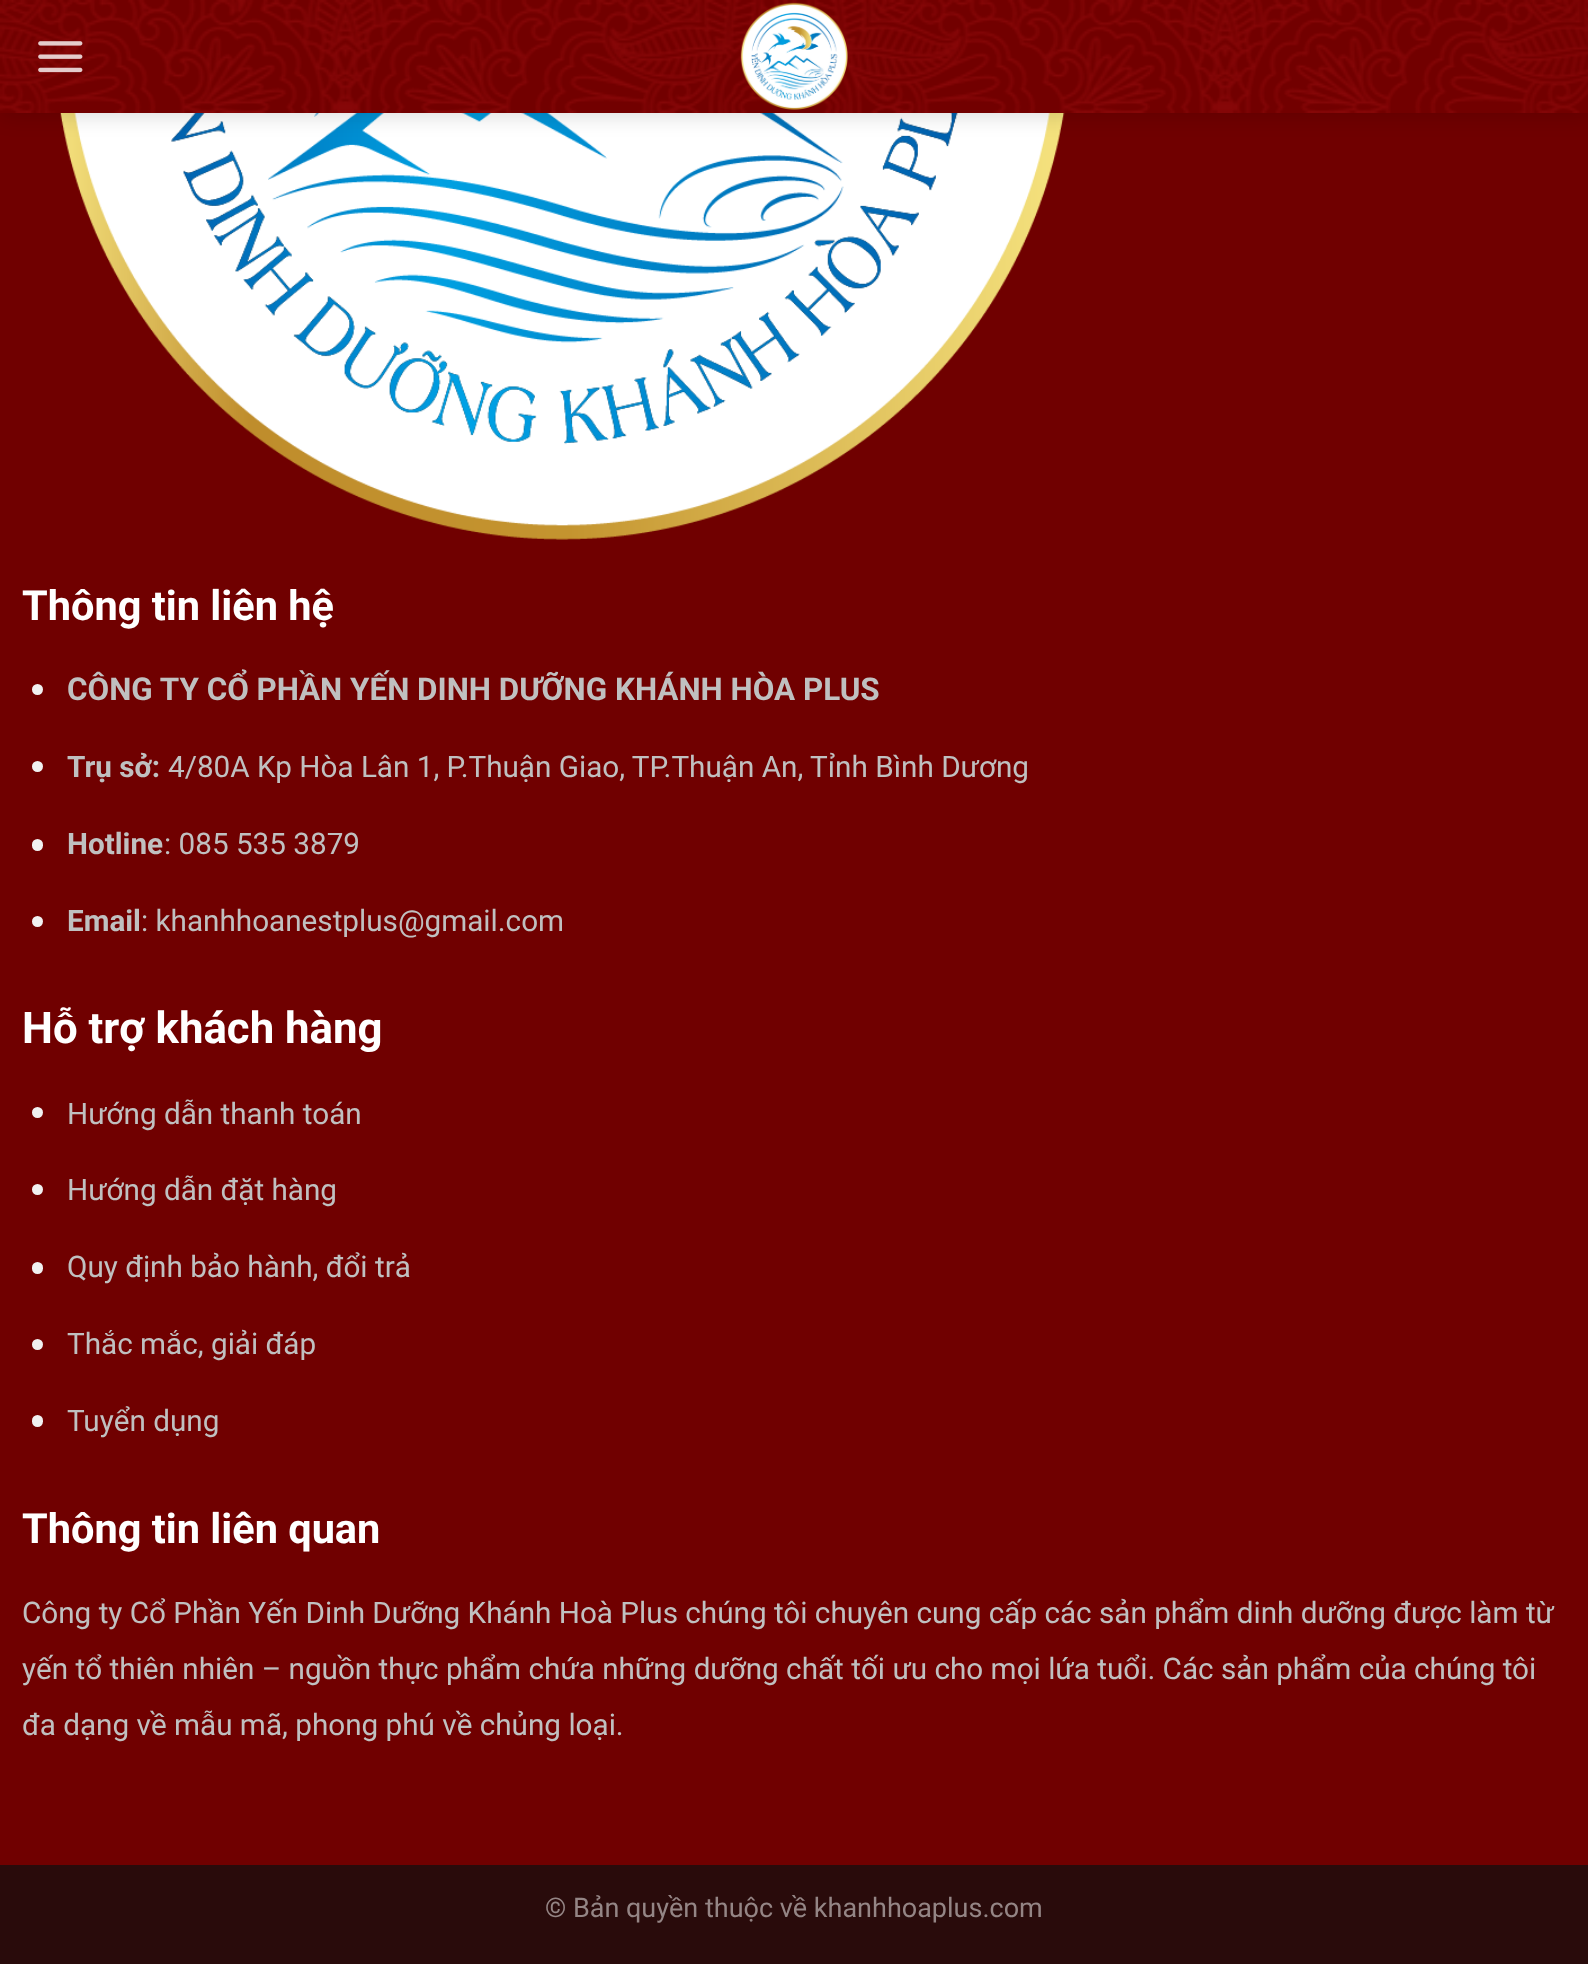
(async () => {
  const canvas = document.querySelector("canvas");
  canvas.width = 1588;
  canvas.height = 1964;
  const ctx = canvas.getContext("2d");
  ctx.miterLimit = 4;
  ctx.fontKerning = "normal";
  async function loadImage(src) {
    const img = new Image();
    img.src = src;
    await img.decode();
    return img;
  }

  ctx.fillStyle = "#290b0b";
  ctx.fillRect(0, 0, 1588, 1964);
  ctx.fillStyle = "#700000";
  ctx.fillRect(0, 113, 1588, 1752);
  ctx.drawImage(await loadImage("img/4.png"), 60, 113, 1005, 427);
  ctx.fillStyle = "rgba(0, 0, 0, 0.15)";
  ctx.filter = "blur(11px)";
  ctx.beginPath();
  ctx.rect(2, 2, 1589, 113);
  ctx.fill();
  ctx.filter = "none";
  ctx.fillStyle = "#720000";
  ctx.fillRect(0, 0, 1588, 113);
  ctx.drawImage(await loadImage("img/1.png"), 0, 0, 1588, 113);
  ctx.drawImage(await loadImage("img/2.png"), 38, 41, 45, 32);
  ctx.drawImage(await loadImage("img/3.png"), 740, 2, 108, 108);
  ctx.fillStyle = "#f1f1f1";
  ctx.beginPath();
  ctx.arc(37.5, 689.5, 5.5, 0, Math.PI * 2);
  ctx.fill();
  ctx.beginPath();
  ctx.arc(37.5, 766.5, 5.5, 0, Math.PI * 2);
  ctx.fill();
  ctx.beginPath();
  ctx.roundRect(32, 839, 11, 12, 5.5);
  ctx.fill();
  ctx.beginPath();
  ctx.arc(37.5, 921.5, 5.5, 0, Math.PI * 2);
  ctx.fill();
  ctx.beginPath();
  ctx.arc(37.5, 1112.5, 5.5, 0, Math.PI * 2);
  ctx.fill();
  ctx.beginPath();
  ctx.arc(37.5, 1189.5, 5.5, 0, Math.PI * 2);
  ctx.fill();
  ctx.beginPath();
  ctx.roundRect(32, 1262, 11, 12, 5.5);
  ctx.fill();
  ctx.beginPath();
  ctx.arc(37.5, 1344.5, 5.5, 0, Math.PI * 2);
  ctx.fill();
  ctx.beginPath();
  ctx.roundRect(32, 1415, 11, 12, 5.5);
  ctx.fill();
  ctx.font = "bold 41.5px Roboto";
  ctx.fillStyle = "#ffffff";
  ctx.fillText("Thông tin liên hệ", 22, 620);
  ctx.font = "bold 31.4px Roboto";
  ctx.fillStyle = "#c0c0c0";
  ctx.fillText("CÔNG TY CỔ PHẦN YẾN DINH DƯỠNG KHÁNH HÒA PLUS", 67, 700);
  ctx.font = "bold 29.68px Roboto";
  ctx.fillText("Trụ sở:", 67, 777);
  ctx.font = "29.68px Roboto";
  ctx.fillText("4/80A Kp Hòa Lân 1, P.Thuận Giao, TP.Thuận An, Tỉnh Bình Dương", 168, 777);
  ctx.font = "bold 29.68px Roboto";
  ctx.fillText("Hotline", 67, 854);
  ctx.font = "29.68px Roboto";
  ctx.fillText(": 085 535 3879", 164, 854);
  ctx.font = "bold 29.68px Roboto";
  ctx.fillText("Email", 67, 931);
  ctx.font = "29.68px Roboto";
  ctx.fillText(": khanhhoanestplus@gmail.com", 141, 931);
  ctx.font = "bold 43.75px Roboto";
  ctx.fillStyle = "#ffffff";
  ctx.fillText("Hỗ trợ khách hàng", 22, 1043);
  ctx.font = "29.68px Roboto";
  ctx.fillStyle = "#c0c0c0";
  for (const [text, x, y] of [
    ["Hướng dẫn thanh toán", 67, 1124],
    ["Hướng dẫn đặt hàng", 67, 1200],
    ["Quy định bảo hành, đổi trả", 67, 1277],
    ["Thắc mắc, giải đáp", 67, 1354],
    ["Tuyển dụng", 67, 1431],
  ]) {
    ctx.fillText(text, x, y);
  }
  ctx.font = "bold 41.5px Roboto";
  ctx.fillStyle = "#ffffff";
  ctx.fillText("Thông tin liên quan", 22, 1543);
  ctx.font = "29.68px Roboto";
  ctx.fillStyle = "#c0c0c0";
  for (const [text, x, y] of [
    ["Công ty Cổ Phần Yến Dinh Dưỡng Khánh Hoà Plus chúng tôi chuyên cung cấp các sản phẩm dinh dưỡng được làm từ", 22, 1623],
    ["yến tổ thiên nhiên – nguồn thực phẩm chứa những dưỡng chất tối ưu cho mọi lứa tuổi. Các sản phẩm của chúng tôi", 22, 1679],
    ["đa dạng về mẫu mã, phong phú về chủng loại.", 22, 1735],
  ]) {
    ctx.fillText(text, x, y);
  }
  ctx.font = "27px Roboto";
  ctx.fillStyle = "#948585";
  ctx.fillText("© Bản quyền thuộc về khanhhoaplus.com", 545, 1917);
})();
